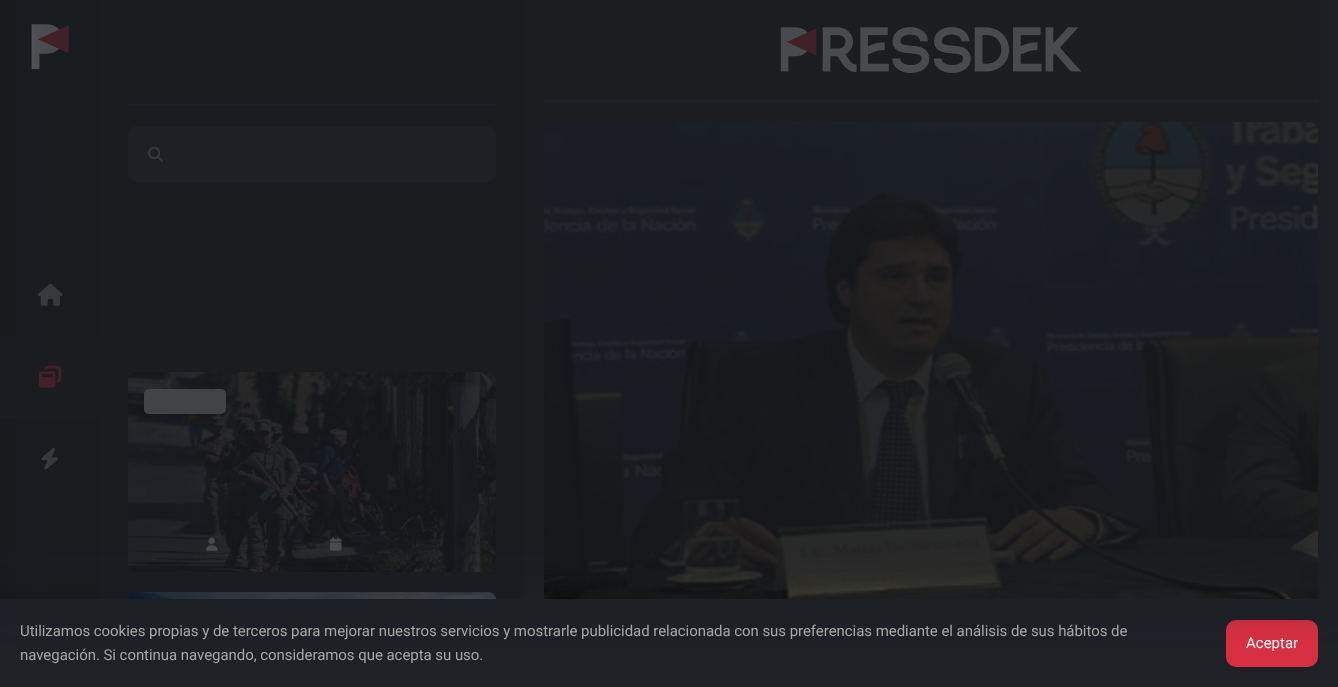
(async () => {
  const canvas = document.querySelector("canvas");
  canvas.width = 1338;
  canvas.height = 687;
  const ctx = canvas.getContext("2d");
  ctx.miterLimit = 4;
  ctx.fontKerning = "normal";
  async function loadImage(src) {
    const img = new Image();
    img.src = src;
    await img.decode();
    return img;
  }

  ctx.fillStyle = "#16191c";
  ctx.fillRect(0, 0, 1338, 687);
  ctx.drawImage(await loadImage("img/1.png"), 31, 24, 38, 46);
  ctx.drawImage(await loadImage("img/2.png"), 38, 283, 25, 23);
  ctx.fillStyle = "#1a1d21";
  ctx.fillRect(0, 336, 100, 82);
  ctx.drawImage(await loadImage("img/3.png"), 39, 365, 22, 23);
  ctx.drawImage(await loadImage("img/4.png"), 41, 447, 17, 23);
  ctx.fillRect(100, 0, 424, 599);
  ctx.fillStyle = "#292d34";
  ctx.fillRect(128, 104, 368, 2);
  ctx.beginPath();
  ctx.roundRect(129, 127, 53, 54, [9, 0, 0, 9]);
  ctx.fill();
  ctx.strokeStyle = "#292d34";
  ctx.lineWidth = 2;
  ctx.stroke();
  ctx.drawImage(await loadImage("img/5.png"), 148, 146, 15, 16);
  ctx.beginPath();
  ctx.roundRect(182, 127, 313, 54, [0, 9, 9, 0]);
  ctx.fill();
  ctx.stroke();
  ctx.drawImage(await loadImage("img/6.png"), 128, 372, 368, 200);
  ctx.fillStyle = "#dbdad7";
  ctx.beginPath();
  ctx.roundRect(144, 389, 82, 25, 5);
  ctx.fill();
  ctx.drawImage(await loadImage("img/7.png"), 206, 537, 12, 14);
  ctx.drawImage(await loadImage("img/8.png"), 330, 537, 12, 14);
  ctx.drawImage(await loadImage("img/9.png"), 128, 592, 368, 7);
  ctx.fillStyle = "#1e2126";
  ctx.fillRect(524, 0, 814, 599);
  ctx.fillStyle = "#292d34";
  ctx.fillRect(544, 100, 774, 2);
  ctx.drawImage(await loadImage("img/10.png"), 780, 27, 302, 46);
  ctx.drawImage(await loadImage("img/11.png"), 544, 122, 774, 477);
  ctx.fillStyle = "#1e2126";
  ctx.fillRect(0, 599, 1338, 88);
  ctx.fillStyle = "#d92f42";
  ctx.beginPath();
  ctx.roundRect(1226, 620, 92, 47, 10);
  ctx.fill();
  ctx.fillStyle = "rgba(26, 29, 33, 0.8)";
  ctx.filter = "blur(20px)";
  ctx.beginPath();
  ctx.rect(0, -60, 1338, 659);
  ctx.fill();
  ctx.filter = "none";
  ctx.letterSpacing = "-0.05px";
  ctx.font = "15px Roboto";
  ctx.fillStyle = "#a7a6a8";
  ctx.fillText("Utilizamos cookies propias y de terceros para mejorar nuestros servicios y mostrarle publicidad relacionada con sus preferencias mediante el análisis de sus hábitos de", 20, 636);
  ctx.fillText("navegación. Si continua navegando, consideramos que acepta su uso.", 20, 660);
  ctx.letterSpacing = "0px";
  ctx.fillStyle = "#ffffff";
  ctx.fillText("Aceptar", 1246, 648);
})();
